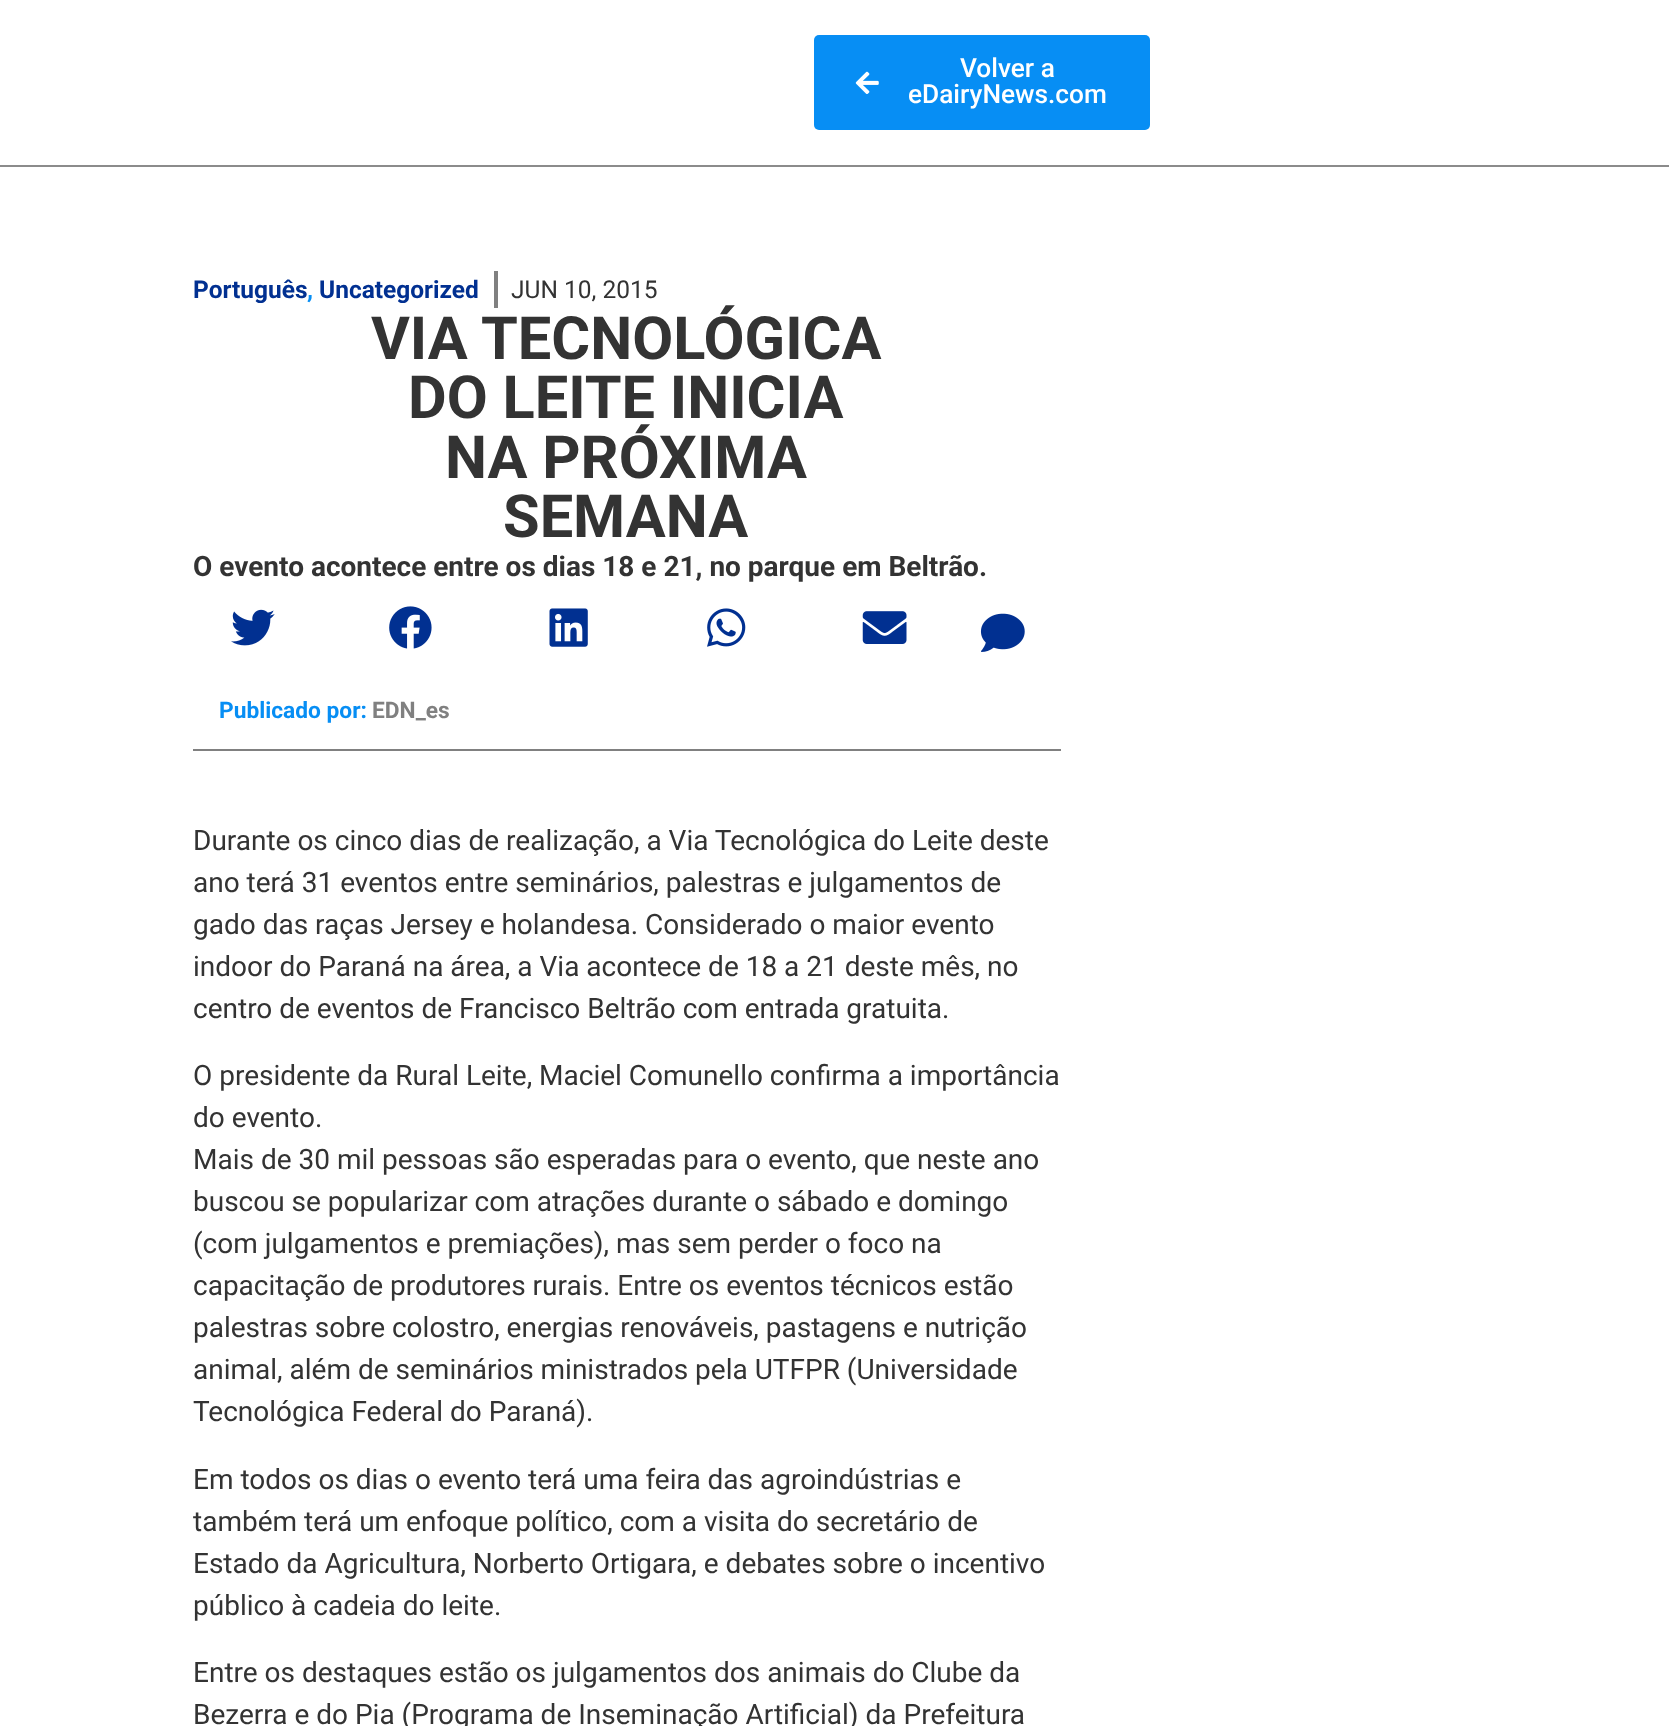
(async () => {
  const canvas = document.querySelector("canvas");
  canvas.width = 1669;
  canvas.height = 1726;
  const ctx = canvas.getContext("2d");
  ctx.miterLimit = 4;
  ctx.fontKerning = "normal";
  async function loadImage(src) {
    const img = new Image();
    img.src = src;
    await img.decode();
    return img;
  }

  ctx.fillStyle = "#ffffff";
  ctx.fillRect(0, 0, 1669, 1726);
  ctx.fillStyle = "#8b8b8b";
  ctx.fillRect(0, 165, 1669, 2);
  ctx.fillStyle = "#078ef4";
  ctx.beginPath();
  ctx.roundRect(814, 35, 336, 95, 5);
  ctx.fill();
  ctx.drawImage(await loadImage("img/1.png"), 855, 71, 24, 23);
  ctx.fillStyle = "#808080";
  ctx.fillRect(494, 271, 4, 37);
  ctx.drawImage(await loadImage("img/2.png"), 231, 609, 44, 37);
  ctx.drawImage(await loadImage("img/3.png"), 389, 606, 43, 43);
  ctx.drawImage(await loadImage("img/4.png"), 549, 608, 39, 39);
  ctx.drawImage(await loadImage("img/5.png"), 707, 608, 39, 39);
  ctx.drawImage(await loadImage("img/6.png"), 862, 611, 45, 33);
  ctx.drawImage(await loadImage("img/7.png"), 980, 613, 45, 39);
  ctx.fillRect(193, 749, 868, 2);
  ctx.font = "500 26.25px Roboto";
  ctx.fillStyle = "#ffffff";
  ctx.fillText("Volver a", 960, 77);
  ctx.fillText("eDairyNews.com", 908, 103);
  ctx.font = "bold 24.5px Roboto";
  ctx.fillStyle = "#013091";
  ctx.fillText("Português", 193, 298);
  ctx.fillStyle = "#078ef4";
  ctx.fillText(",", 307, 298);
  ctx.fillStyle = "#013091";
  ctx.fillText("Uncategorized", 319, 298);
  ctx.font = "24.5px Roboto";
  ctx.fillStyle = "#333333";
  ctx.fillText("JUN 10, 2015", 511, 298);
  ctx.font = "bold 59.5px Roboto";
  for (const [text, x, y] of [
    ["VIA TECNOLÓGICA", 371, 359],
    ["DO LEITE INICIA", 408, 418],
    ["NA PRÓXIMA", 445, 478],
    ["SEMANA", 503, 537],
  ]) {
    ctx.fillText(text, x, y);
  }
  ctx.font = "bold 28px Roboto";
  ctx.fillText("O evento acontece entre os dias 18 e 21, no parque em Beltrão.", 193, 576);
  ctx.font = "bold 22.75px Roboto";
  ctx.fillStyle = "#078ef4";
  ctx.fillText("Publicado por:", 219, 718);
  ctx.fillStyle = "#808080";
  ctx.fillText("EDN_es", 372, 718);
  ctx.font = "28px Roboto";
  ctx.fillStyle = "#333333";
  for (const [text, x, y] of [
    ["Durante os cinco dias de realização, a Via Tecnológica do Leite deste", 193, 850],
    ["ano terá 31 eventos entre seminários, palestras e julgamentos de", 193, 892],
    ["gado das raças Jersey e holandesa. Considerado o maior evento", 193, 934],
    ["indoor do Paraná na área, a Via acontece de 18 a 21 deste mês, no", 193, 976],
    ["centro de eventos de Francisco Beltrão com entrada gratuita.", 193, 1018],
    ["O presidente da Rural Leite, Maciel Comunello confirma a importância", 193, 1085],
    ["do evento.", 193, 1127],
    ["Mais de 30 mil pessoas são esperadas para o evento, que neste ano", 193, 1169],
    ["buscou se popularizar com atrações durante o sábado e domingo", 193, 1211],
    ["(com julgamentos e premiações), mas sem perder o foco na", 193, 1253],
    ["capacitação de produtores rurais. Entre os eventos técnicos estão", 193, 1295],
    ["palestras sobre colostro, energias renováveis, pastagens e nutrição", 193, 1337],
    ["animal, além de seminários ministrados pela UTFPR (Universidade", 193, 1379],
    ["Tecnológica Federal do Paraná).", 193, 1421],
    ["Em todos os dias o evento terá uma feira das agroindústrias e", 193, 1489],
    ["também terá um enfoque político, com a visita do secretário de", 193, 1531],
    ["Estado da Agricultura, Norberto Ortigara, e debates sobre o incentivo", 193, 1573],
    ["público à cadeia do leite.", 193, 1615],
    ["Entre os destaques estão os julgamentos dos animais do Clube da", 193, 1682],
    ["Bezerra e do Pia (Programa de Inseminação Artificial) da Prefeitura", 193, 1724],
  ]) {
    ctx.fillText(text, x, y);
  }
})();
